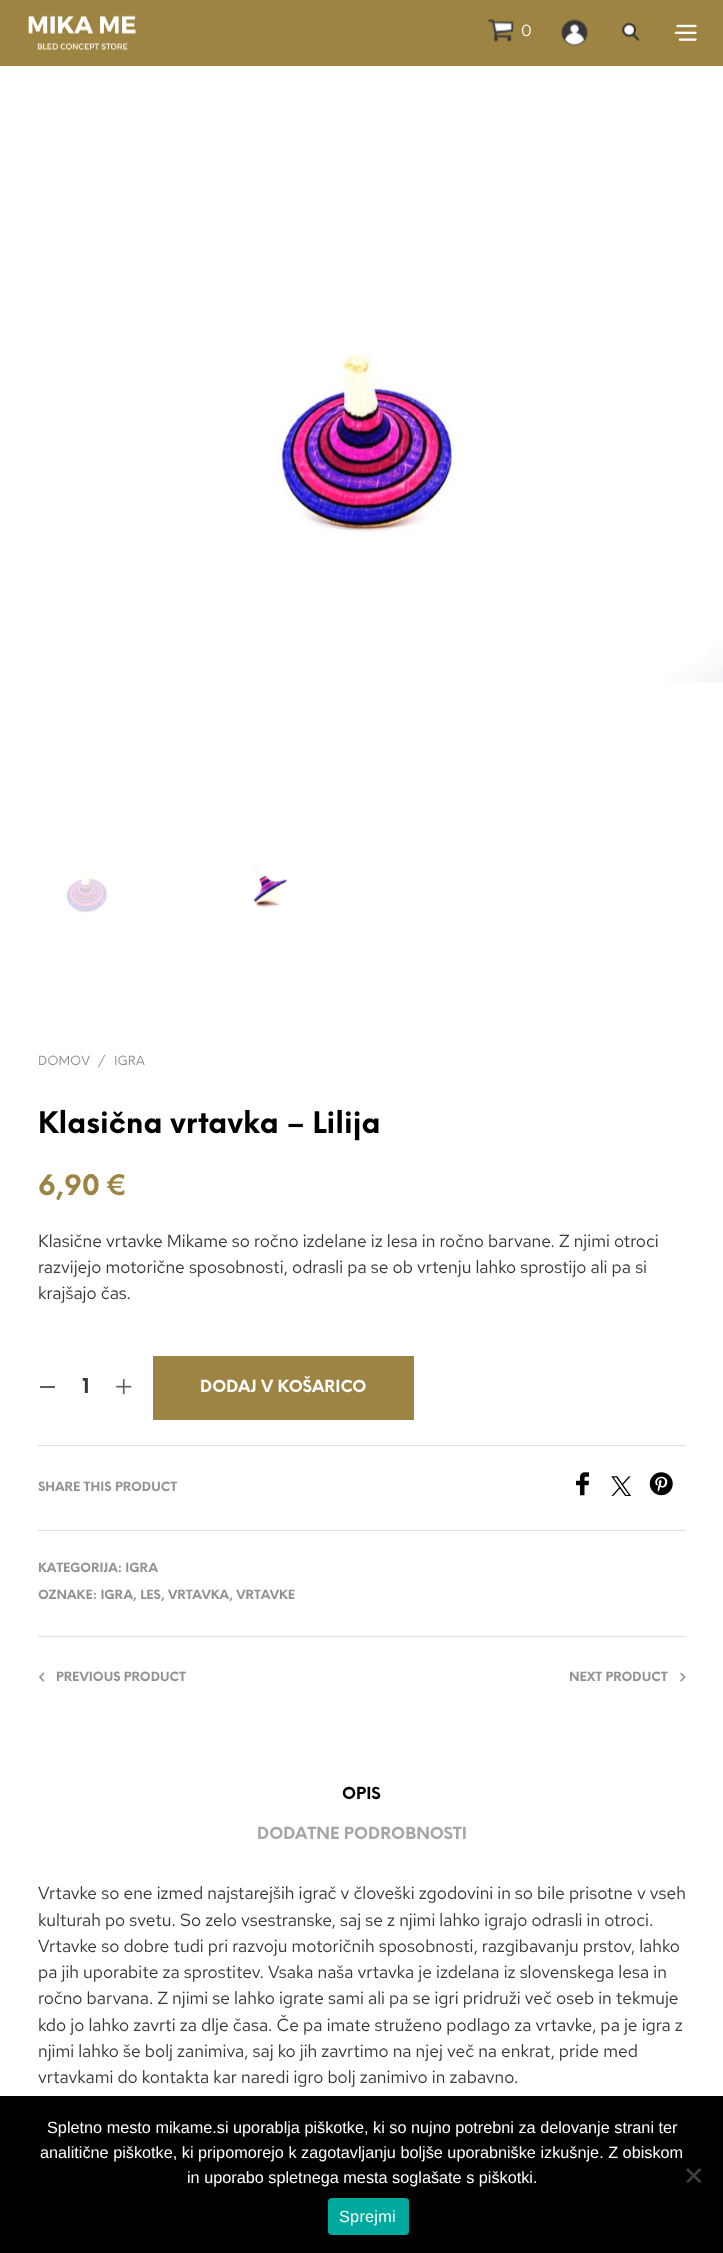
(async () => {
  const canvas = document.querySelector("canvas");
  canvas.width = 723;
  canvas.height = 2253;
  const ctx = canvas.getContext("2d");
  ctx.miterLimit = 4;
  ctx.fontKerning = "normal";
  async function loadImage(src) {
    const img = new Image();
    img.src = src;
    await img.decode();
    return img;
  }
  let path;

  ctx.fillStyle = "#ffffff";
  ctx.fillRect(0, 0, 723, 2253);
  ctx.fillStyle = "#9e8442";
  ctx.fillRect(0, 0, 723, 66);
  ctx.drawImage(await loadImage("img/1.png"), 28, 15, 108, 35);
  ctx.drawImage(await loadImage("img/2.png"), 487, 19, 27, 23);
  ctx.drawImage(await loadImage("img/3.png"), 561, 19, 27, 27);
  ctx.drawImage(await loadImage("img/4.png"), 622, 22, 18, 20);
  ctx.drawImage(await loadImage("img/5.png"), 674, 24, 23, 17);
  ctx.drawImage(await loadImage("img/6.png"), 277, 355, 446, 328);
  ctx.drawImage(await loadImage("img/7.png"), 66, 871, 41, 42);
  ctx.drawImage(await loadImage("img/8.png"), 253, 866, 35, 42);
  ctx.fillStyle = "#606060";
  ctx.fillRect(40, 1386, 15, 2);
  ctx.drawImage(await loadImage("img/9.png"), 116, 1379, 16, 16);
  ctx.fillStyle = "#9e8442";
  ctx.fillRect(153, 1356, 261, 64);
  ctx.fillStyle = "#e1e1e1";
  ctx.fillRect(38, 1445, 648, 1);
  ctx.drawImage(await loadImage("img/10.png"), 576, 1472, 13, 24);
  ctx.drawImage(await loadImage("img/11.png"), 611, 1476, 20, 20);
  ctx.drawImage(await loadImage("img/12.png"), 649, 1472, 24, 24);
  ctx.fillRect(38, 1530, 648, 1);
  ctx.fillRect(38, 1636, 648, 1);
  ctx.drawImage(await loadImage("img/13.png"), 39, 1672, 6, 10);
  ctx.drawImage(await loadImage("img/14.png"), 680, 1672, 6, 10);
  ctx.fillStyle = "#000000";
  ctx.fillRect(0, 2096, 723, 157);
  ctx.fillStyle = "#404040";
  path = new Path2D("M699.5 2168L701.5 2170L688 2183L686 2181.5Z");
  ctx.fill(path);
  path = new Path2D("M686 2170L688 2168L701.5 2181.5L699.5 2183Z");
  ctx.fill(path);
  ctx.fillStyle = "#00a99d";
  ctx.beginPath();
  ctx.roundRect(328, 2198, 81, 37, 4);
  ctx.fill();
  ctx.font = "16.25px Red Hat Text";
  ctx.fillStyle = "#ffffff";
  ctx.fillText("0", 521, 36);
  ctx.font = "12.5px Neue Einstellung";
  ctx.fillStyle = "#929292";
  for (const [text, x, y] of [
    ["DOMOV", 38, 1065],
    ["/", 98, 1065],
    ["IGRA", 114, 1065],
  ]) {
    ctx.fillText(text, x, y);
  }
  ctx.font = "bold 28.9px Neue Einstellung";
  ctx.fillStyle = "#000000";
  ctx.fillText("Klasična vrtavka – Lilija", 38, 1133);
  ctx.font = "bold 27.5px Neue Einstellung";
  ctx.fillStyle = "#9e8442";
  ctx.fillText("6,90 €", 38, 1195);
  ctx.font = "17.5px Red Hat Text";
  ctx.fillStyle = "#383838";
  for (const [text, x, y] of [
    ["Klasične vrtavke Mikame so ročno izdelane iz lesa in ročno barvane. Z njimi otroci", 38, 1247],
    ["razvijejo motorične sposobnosti, odrasli pa se ob vrtenju lahko sprostijo ali pa si", 38, 1273],
    ["krajšajo čas.", 38, 1299],
  ]) {
    ctx.fillText(text, x, y);
  }
  ctx.font = "bold 20px Neue Einstellung";
  ctx.fillText("1", 82, 1393);
  ctx.font = "bold 16.25px Neue Einstellung";
  ctx.fillStyle = "#ffffff";
  ctx.fillText("DODAJ V KOŠARICO", 200, 1392);
  ctx.font = "bold 12.5px Neue Einstellung";
  ctx.fillStyle = "#929292";
  for (const [text, x, y] of [
    ["SHARE THIS PRODUCT", 38, 1491],
    ["KATEGORIJA: IGRA", 38, 1572],
    ["OZNAKE: IGRA, LES, VRTAVKA, VRTAVKE", 38, 1599],
    ["PREVIOUS PRODUCT", 56, 1681],
    ["NEXT PRODUCT", 569, 1681],
  ]) {
    ctx.fillText(text, x, y);
  }
  ctx.font = "bold 16.25px Neue Einstellung";
  ctx.fillStyle = "#000000";
  ctx.fillText("OPIS", 342, 1799);
  ctx.fillStyle = "#a6a6a6";
  ctx.fillText("DODATNE PODROBNOSTI", 257, 1839);
  ctx.font = "17.5px Red Hat Text";
  ctx.fillStyle = "#383838";
  for (const [text, x, y] of [
    ["Vrtavke so ene izmed najstarejših igrač v človeški zgodovini in so bile prisotne v vseh", 38, 1899],
    ["kulturah po svetu. So zelo vsestranske, saj se z njimi lahko igrajo odrasli in otroci.", 38, 1926],
    ["Vrtavke so dobre tudi pri razvoju motoričnih sposobnosti, razgibavanju prstov, lahko", 38, 1952],
    ["pa jih uporabite za sprostitev. Vsaka naša vrtavka je izdelana iz slovenskega lesa in", 38, 1978],
    ["ročno barvana. Z njimi se lahko igrate sami ali pa se igri pridruži več oseb in tekmuje", 38, 2004],
    ["kdo jo lahko zavrti za dlje časa. Če pa imate struženo podlago za vrtavke, pa je igra z", 38, 2031],
    ["njimi lahko še bolj zanimiva, saj ko jih zavrtimo na njej več na enkrat, pride med", 38, 2057],
    ["vrtavkami do kontakta kar naredi igro bolj zanimivo in zabavno.", 38, 2083],
  ]) {
    ctx.fillText(text, x, y);
  }
  ctx.font = "16.25px Liberation Sans";
  ctx.fillStyle = "#ffffff";
  for (const [text, x, y] of [
    ["Spletno mesto mikame.si uporablja piškotke, ki so nujno potrebni za delovanje strani ter", 47, 2133],
    ["analitične piškotke, ki pripomorejo k zagotavljanju boljše uporabniške izkušnje. Z obiskom", 40, 2158],
    ["in uporabo spletnega mesta soglašate s piškotki.", 187, 2183],
  ]) {
    ctx.fillText(text, x, y);
  }
  ctx.letterSpacing = "0.25px";
  ctx.fillText("Sprejmi", 339, 2222);
})();
